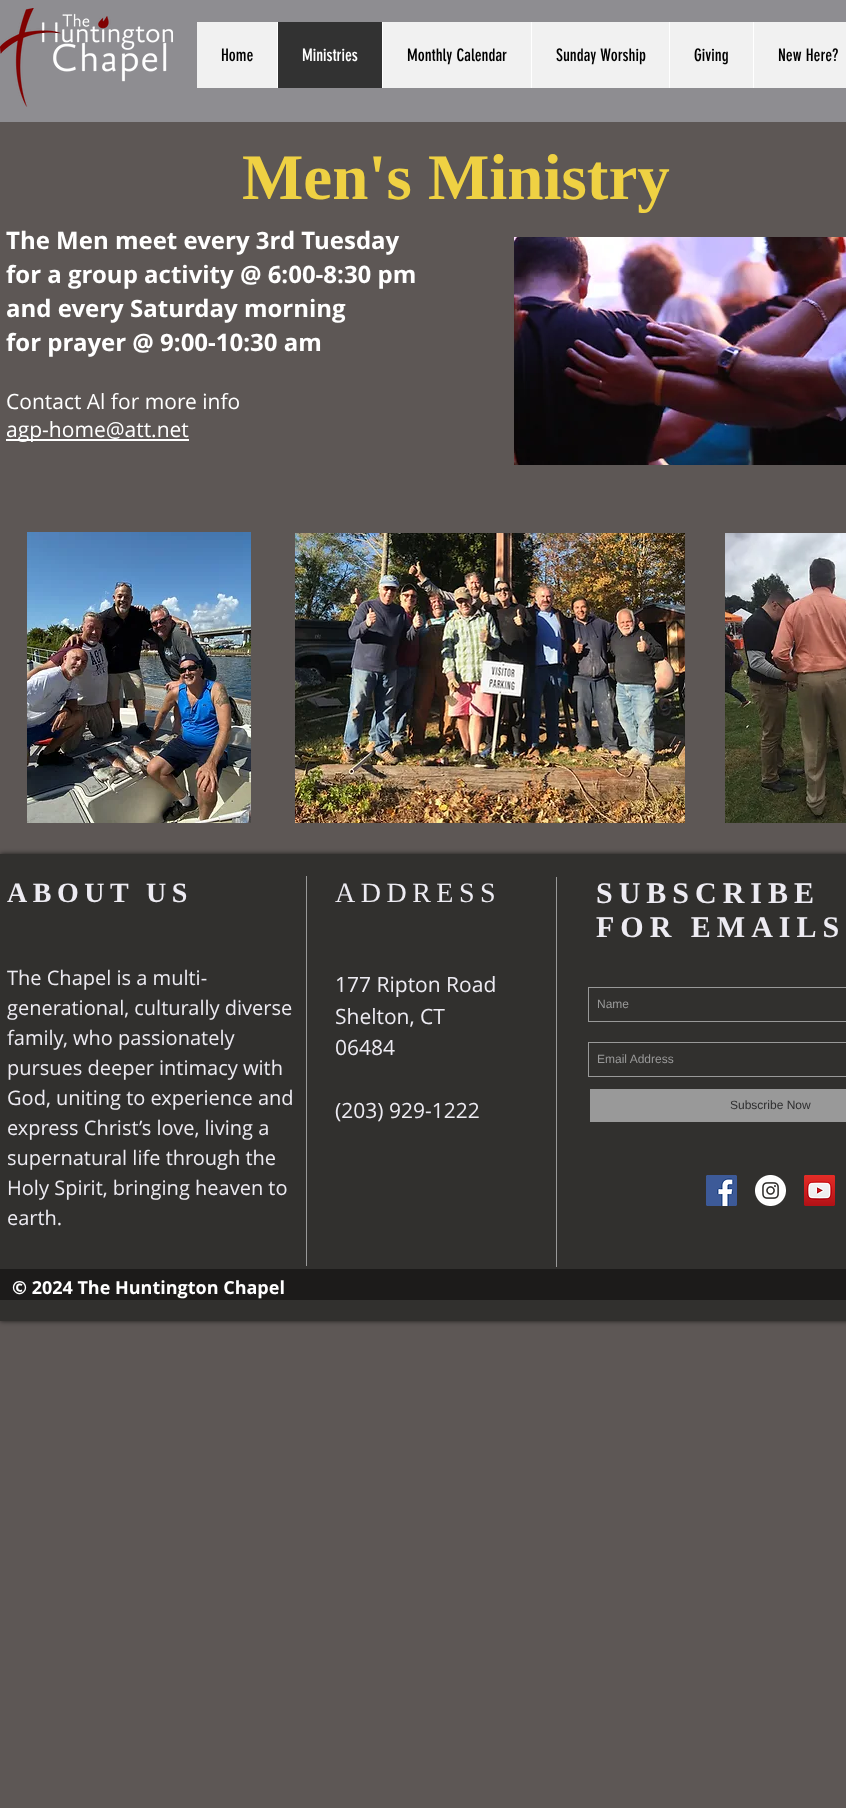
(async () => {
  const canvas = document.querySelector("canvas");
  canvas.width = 846;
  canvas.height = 1808;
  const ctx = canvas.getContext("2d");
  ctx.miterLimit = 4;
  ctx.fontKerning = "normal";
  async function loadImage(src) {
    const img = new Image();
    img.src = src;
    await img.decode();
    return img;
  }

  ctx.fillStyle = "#5d5755";
  ctx.fillRect(0, 0, 846, 1808);
  ctx.fillStyle = "#8e8d91";
  ctx.fillRect(0, 0, 846, 122);
  ctx.drawImage(await loadImage("img/1.png"), 0, 8, 173, 99);
  for (const [x, y, w, h, color] of [
    [197, 22, 649, 66, "#f1f1f1"],
    [278, 22, 104, 66, "#323232"],
    [277, 22, 1, 66, "#ffffff"],
    [382, 22, 1, 66, "#ffffff"],
    [531, 22, 1, 66, "#ffffff"],
    [669, 22, 1, 66, "#ffffff"],
    [753, 22, 1, 66, "#ffffff"],
    [6, 439, 183, 2, "#ffffff"],
  ]) {
    ctx.fillStyle = color;
    ctx.fillRect(x, y, w, h);
  }
  ctx.drawImage(await loadImage("img/2.png"), 514, 237, 332, 228);
  ctx.drawImage(await loadImage("img/3.png"), 27, 532, 224, 291);
  ctx.drawImage(await loadImage("img/4.png"), 295, 533, 390, 290);
  ctx.drawImage(await loadImage("img/5.png"), 725, 533, 121, 290);
  ctx.fillStyle = "rgba(0, 0, 0, 0.7)";
  ctx.filter = "blur(2.5px)";
  ctx.beginPath();
  ctx.rect(0, 854, 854, 467);
  ctx.fill();
  ctx.filter = "none";
  for (const [x, y, w, h, color] of [
    [0, 854, 846, 467, "#31302e"],
    [306, 876, 1, 390, "#999999"],
    [556, 877, 1, 390, "#999999"],
  ]) {
    ctx.fillStyle = color;
    ctx.fillRect(x, y, w, h);
  }
  ctx.strokeStyle = "#999999";
  ctx.strokeRect(588.5, 987.5, 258, 34);
  ctx.strokeRect(588.5, 1042.5, 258, 34);
  ctx.fillRect(590, 1089, 256, 33);
  ctx.drawImage(await loadImage("img/6.png"), 706, 1175, 31, 31);
  ctx.drawImage(await loadImage("img/7.png"), 755, 1175, 31, 31);
  ctx.drawImage(await loadImage("img/8.png"), 804, 1175, 31, 31);
  ctx.fillStyle = "#1c1b1a";
  ctx.fillRect(0, 1269, 846, 31);
  ctx.font = "17px 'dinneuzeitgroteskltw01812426'";
  ctx.fillStyle = "#000000";
  ctx.fillText("Home", 221, 61);
  ctx.fillStyle = "#ffffff";
  ctx.fillText("Ministries", 302, 61);
  ctx.fillStyle = "#000000";
  for (const [text, x, y] of [
    ["Monthly Calendar", 407, 61],
    ["Sunday Worship", 556, 61],
    ["Giving", 694, 61],
    ["New Here?", 778, 61],
  ]) {
    ctx.fillText(text, x, y);
  }
  ctx.font = "bold 65px Liberation Serif";
  ctx.fillStyle = "#efd143";
  ctx.fillText("Men's Ministry", 242, 199);
  ctx.font = "bold 24px Open Sans";
  ctx.fillStyle = "#ffffff";
  for (const [text, x, y] of [
    ["The Men meet every 3rd Tuesday", 6, 249],
    ["for a group activity @ 6:00-8:30 pm", 6, 283],
    ["and every Saturday morning", 6, 317],
    ["for prayer @ 9:00-10:30 am", 6, 351],
  ]) {
    ctx.fillText(text, x, y);
  }
  ctx.font = "21px Open Sans";
  ctx.fillText("Contact Al for more info", 6, 409);
  ctx.fillText("agp-home@att.net", 6, 437);
  ctx.letterSpacing = "5.5px";
  ctx.font = "bold 28px Liberation Serif";
  ctx.fillStyle = "#edebf2";
  ctx.fillText("ABOUT US", 7, 902);
  ctx.font = "28px Liberation Serif";
  ctx.fillText("ADDRESS", 335, 902);
  ctx.letterSpacing = "6px";
  ctx.font = "bold 30px Liberation Serif";
  ctx.fillText("SUBSCRIBE", 596, 903);
  ctx.fillText("FOR EMAILS", 596, 937);
  ctx.letterSpacing = "0px";
  ctx.font = "20px Open Sans";
  for (const [text, x, y] of [
    ["The Chapel is a multi-", 7, 985],
    ["generational, culturally diverse", 7, 1015],
    ["family, who passionately", 7, 1045],
    ["pursues deeper intimacy with", 7, 1075],
    ["God, uniting to experience and", 7, 1105],
    ["express Christ’s love, living a", 7, 1135],
    ["supernatural life through the", 7, 1165],
    ["Holy Spirit, bringing heaven to", 7, 1195],
    ["earth.", 7, 1225],
  ]) {
    ctx.fillText(text, x, y);
  }
  ctx.font = "21px Open Sans";
  for (const [text, x, y] of [
    ["177 Ripton Road", 335, 992],
    ["Shelton, CT", 335, 1024],
    ["06484", 335, 1055],
    ["(203) 929-1222", 335, 1118],
  ]) {
    ctx.fillText(text, x, y);
  }
  ctx.font = "12px Liberation Sans";
  ctx.fillStyle = "#999999";
  ctx.fillText("Name", 597, 1008);
  ctx.fillText("Email Address", 597, 1063);
  ctx.fillStyle = "#2f2f30";
  ctx.fillText("Subscribe Now", 730, 1109);
  ctx.font = "bold 18px Open Sans";
  ctx.fillStyle = "#ffffff";
  ctx.fillText("© 2024 The Huntington Chapel", 12, 1294);
})();
